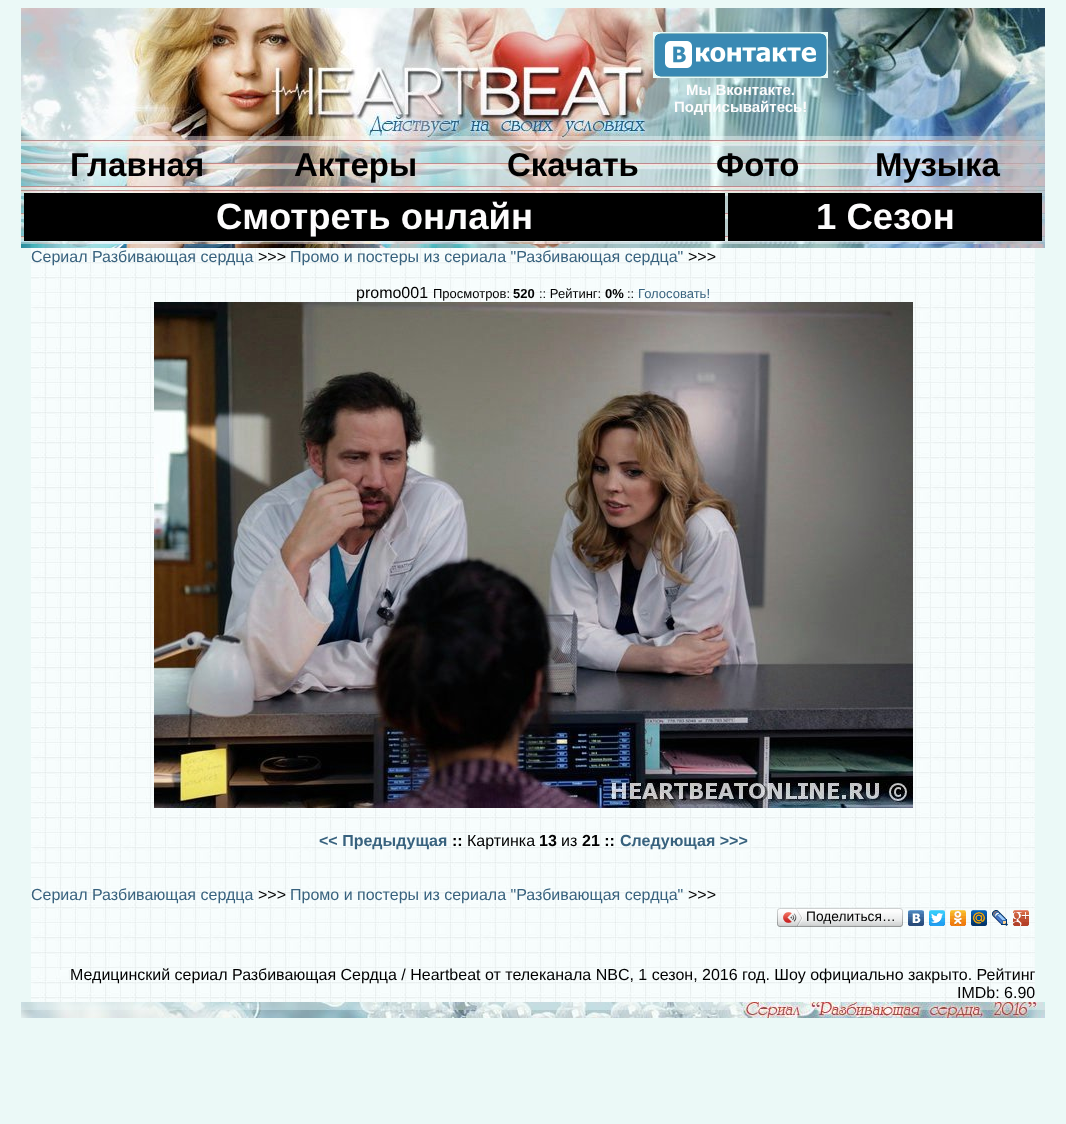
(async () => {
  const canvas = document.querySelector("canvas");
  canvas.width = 1066;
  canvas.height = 1124;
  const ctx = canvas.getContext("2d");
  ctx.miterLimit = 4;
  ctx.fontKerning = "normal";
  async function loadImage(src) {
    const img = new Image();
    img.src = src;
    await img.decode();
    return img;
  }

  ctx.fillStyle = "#ebf9f7";
  ctx.fillRect(0, 0, 1066, 1124);
  ctx.drawImage(await loadImage("img/1.png"), 21, 8, 627, 132);
  ctx.drawImage(await loadImage("img/2.png"), 648, 8, 397, 132);
  ctx.drawImage(await loadImage("img/3.png"), 653, 32, 175, 46);
  ctx.drawImage(await loadImage("img/4.png"), 21, 140, 1024, 50);
  ctx.drawImage(await loadImage("img/5.png"), 21, 190, 1024, 54);
  ctx.fillStyle = "#000000";
  ctx.fillRect(24, 193, 701, 48);
  ctx.fillRect(728, 193, 314, 48);
  ctx.drawImage(await loadImage("img/6.png"), 21, 244, 1024, 4);
  ctx.drawImage(await loadImage("img/7.png"), 31, 248, 1004, 754);
  ctx.drawImage(await loadImage("img/8.png"), 154, 302, 759, 506);
  ctx.drawImage(await loadImage("img/9.png"), 780, 908, 120, 19);
  ctx.drawImage(await loadImage("img/10.png"), 777, 908, 3, 19);
  ctx.drawImage(await loadImage("img/11.png"), 783, 909, 20, 17);
  ctx.drawImage(await loadImage("img/12.png"), 900, 908, 3, 19);
  ctx.drawImage(await loadImage("img/13.png"), 908, 910, 16, 16);
  ctx.drawImage(await loadImage("img/14.png"), 929, 910, 16, 16);
  ctx.drawImage(await loadImage("img/15.png"), 950, 910, 16, 16);
  ctx.drawImage(await loadImage("img/16.png"), 971, 910, 16, 16);
  ctx.drawImage(await loadImage("img/17.png"), 992, 910, 16, 16);
  ctx.drawImage(await loadImage("img/18.png"), 1013, 910, 16, 16);
  ctx.drawImage(await loadImage("img/19.png"), 60, 970, 10, 10);
  ctx.drawImage(await loadImage("img/20.png"), 21, 1002, 1024, 16);
  ctx.font = "bold 15px Liberation Sans";
  ctx.fillStyle = "#fdfcfd";
  ctx.fillText("Мы Вконтакте.", 686, 95);
  ctx.fillText("Подписывайтесь!", 674, 112);
  ctx.font = "bold 33px Liberation Sans";
  ctx.fillStyle = "#000000";
  for (const [text, x, y] of [
    ["Главная", 70, 176],
    ["Актеры", 294, 176],
    ["Скачать", 507, 176],
    ["Фото", 716, 176],
    ["Музыка", 875, 176],
  ]) {
    ctx.fillText(text, x, y);
  }
  ctx.font = "bold 36.5px Liberation Sans";
  ctx.fillStyle = "#fdfcfd";
  ctx.fillText("Смотреть онлайн", 216, 229);
  ctx.fillText("1 Сезон", 816, 229);
  ctx.font = "16px Liberation Sans";
  ctx.fillStyle = "#38627e";
  ctx.fillText("Сериал Разбивающая сердца", 31, 262);
  ctx.fillStyle = "#000000";
  ctx.fillText(">>>", 258, 262);
  ctx.fillStyle = "#38627e";
  ctx.fillText("Промо и постеры из сериала \"Разбивающая сердца\"", 290, 262);
  ctx.fillStyle = "#000000";
  ctx.fillText(">>>", 688, 262);
  ctx.fillText("promo001", 356, 298);
  ctx.font = "13px Liberation Sans";
  ctx.fillText("Просмотров:", 433, 298);
  ctx.font = "bold 13px Liberation Sans";
  ctx.fillText("520", 513, 298);
  ctx.font = "13px Liberation Sans";
  ctx.fillText(":: Рейтинг:", 539, 298);
  ctx.font = "bold 13px Liberation Sans";
  ctx.fillText("0%", 605, 298);
  ctx.font = "13px Liberation Sans";
  ctx.fillText("::", 627, 298);
  ctx.fillStyle = "#38627e";
  ctx.fillText("Голосовать!", 638, 298);
  ctx.font = "bold 16px Liberation Sans";
  ctx.fillText("<< Предыдущая", 319, 846);
  ctx.fillStyle = "#000000";
  ctx.fillText("::", 452, 846);
  ctx.font = "16px Liberation Sans";
  ctx.fillText("Картинка", 467, 846);
  ctx.font = "bold 16px Liberation Sans";
  ctx.fillText("13", 539, 846);
  ctx.font = "16px Liberation Sans";
  ctx.fillText("из", 561, 846);
  ctx.font = "bold 16px Liberation Sans";
  ctx.fillText("21 ::", 582, 846);
  ctx.fillStyle = "#38627e";
  ctx.fillText("Следующая >>>", 620, 846);
  ctx.font = "16px Liberation Sans";
  ctx.fillText("Сериал Разбивающая сердца", 31, 900);
  ctx.fillStyle = "#000000";
  ctx.fillText(">>>", 258, 900);
  ctx.fillStyle = "#38627e";
  ctx.fillText("Промо и постеры из сериала \"Разбивающая сердца\"", 290, 900);
  ctx.fillStyle = "#000000";
  ctx.fillText(">>>", 688, 900);
  ctx.font = "13.75px Liberation Sans";
  ctx.fillText("Поделиться…", 806, 921);
  ctx.font = "16px Liberation Sans";
  ctx.fillText("Медицинский сериал Разбивающая Сердца / Heartbeat от телеканала NBC, 1 сезон, 2016 год. Шоу официально закрыто. Рейтинг", 70, 980);
  ctx.fillText("IMDb: 6.90", 957, 998);
})();
